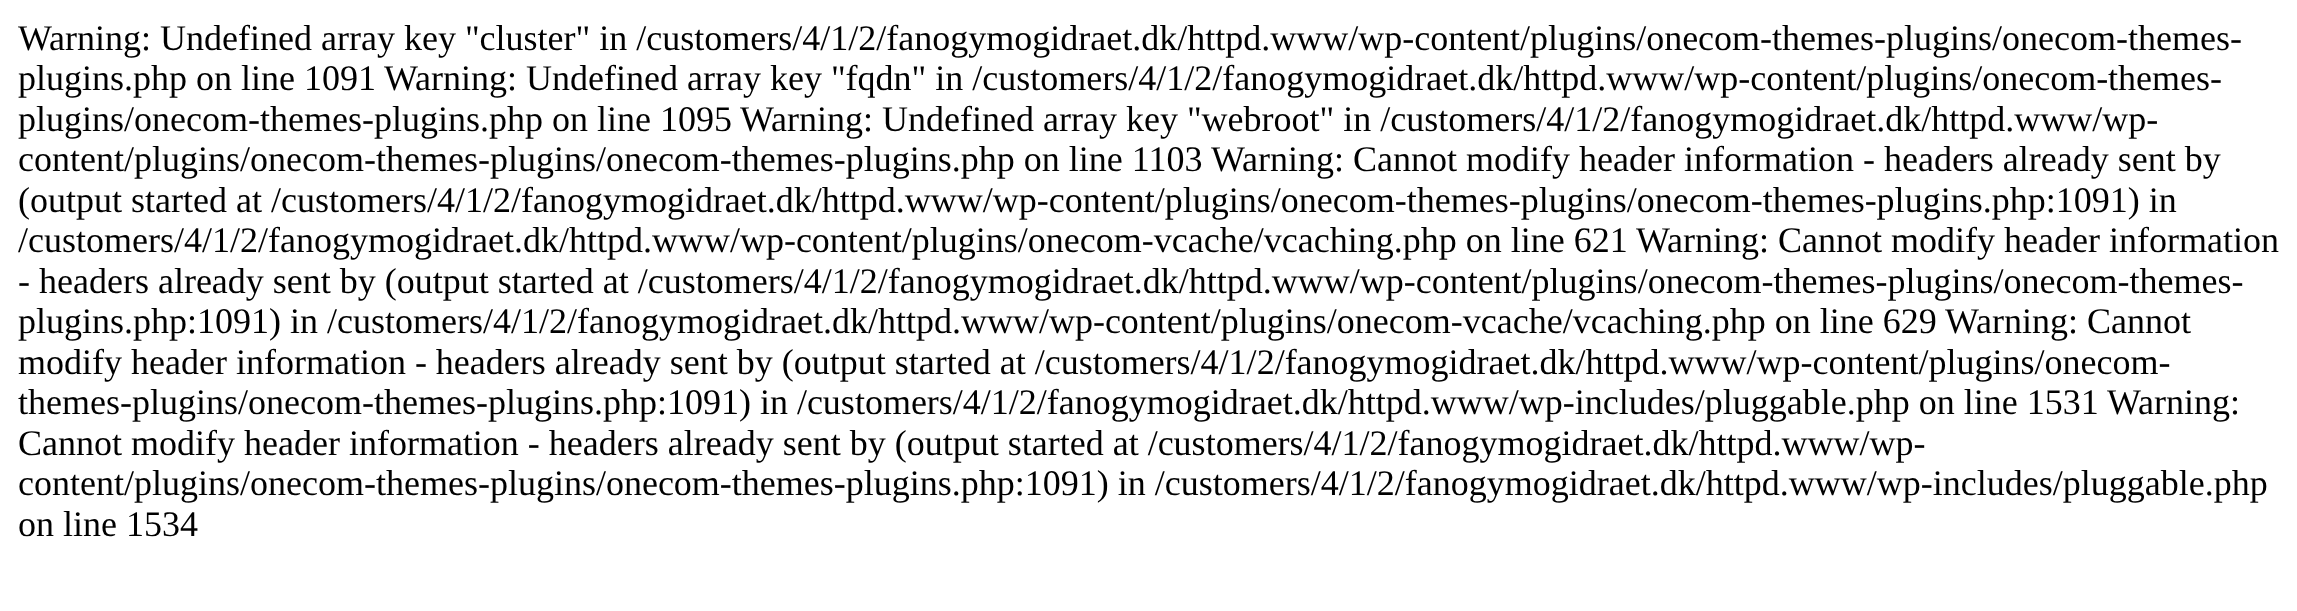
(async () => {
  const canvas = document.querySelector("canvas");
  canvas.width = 2297;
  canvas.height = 611;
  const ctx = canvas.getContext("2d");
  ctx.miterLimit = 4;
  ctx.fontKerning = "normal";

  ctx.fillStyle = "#ffffff";
  ctx.fillRect(0, 0, 2297, 611);
  ctx.font = "36px Liberation Serif";
  ctx.fillStyle = "#000000";
  for (const [text, x, y] of [
    ["Warning: Undefined array key \"cluster\" in /customers/4/1/2/fanogymogidraet.dk/httpd.www/wp-content/plugins/onecom-themes-plugins/onecom-themes-", 18, 50],
    ["plugins.php on line 1091", 18, 90],
    ["Warning: Undefined array key \"fqdn\" in /customers/4/1/2/fanogymogidraet.dk/httpd.www/wp-content/plugins/onecom-themes-", 384, 90],
    ["plugins/onecom-themes-plugins.php on line 1095", 18, 131],
    ["Warning: Undefined array key \"webroot\" in /customers/4/1/2/fanogymogidraet.dk/httpd.www/wp-", 740, 131],
    ["content/plugins/onecom-themes-plugins/onecom-themes-plugins.php on line 1103", 18, 171],
    ["Warning: Cannot modify header information - headers already sent by", 1211, 171],
    ["(output started at /customers/4/1/2/fanogymogidraet.dk/httpd.www/wp-content/plugins/onecom-themes-plugins/onecom-themes-plugins.php:1091) in", 18, 212],
    ["/customers/4/1/2/fanogymogidraet.dk/httpd.www/wp-content/plugins/onecom-vcache/vcaching.php on line 621", 18, 252],
    ["Warning: Cannot modify header information", 1636, 252],
    ["- headers already sent by (output started at /customers/4/1/2/fanogymogidraet.dk/httpd.www/wp-content/plugins/onecom-themes-plugins/onecom-themes-", 18, 293],
    ["plugins.php:1091) in /customers/4/1/2/fanogymogidraet.dk/httpd.www/wp-content/plugins/onecom-vcache/vcaching.php on line 629", 18, 333],
    ["Warning: Cannot", 1945, 333],
    ["modify header information - headers already sent by (output started at /customers/4/1/2/fanogymogidraet.dk/httpd.www/wp-content/plugins/onecom-", 18, 374],
    ["themes-plugins/onecom-themes-plugins.php:1091) in /customers/4/1/2/fanogymogidraet.dk/httpd.www/wp-includes/pluggable.php on line 1531", 18, 414],
    ["Warning:", 2107, 414],
    ["Cannot modify header information - headers already sent by (output started at /customers/4/1/2/fanogymogidraet.dk/httpd.www/wp-", 18, 455],
    ["content/plugins/onecom-themes-plugins/onecom-themes-plugins.php:1091) in /customers/4/1/2/fanogymogidraet.dk/httpd.www/wp-includes/pluggable.php", 18, 495],
    ["on line 1534", 18, 536],
  ]) {
    ctx.fillText(text, x, y);
  }
})();
